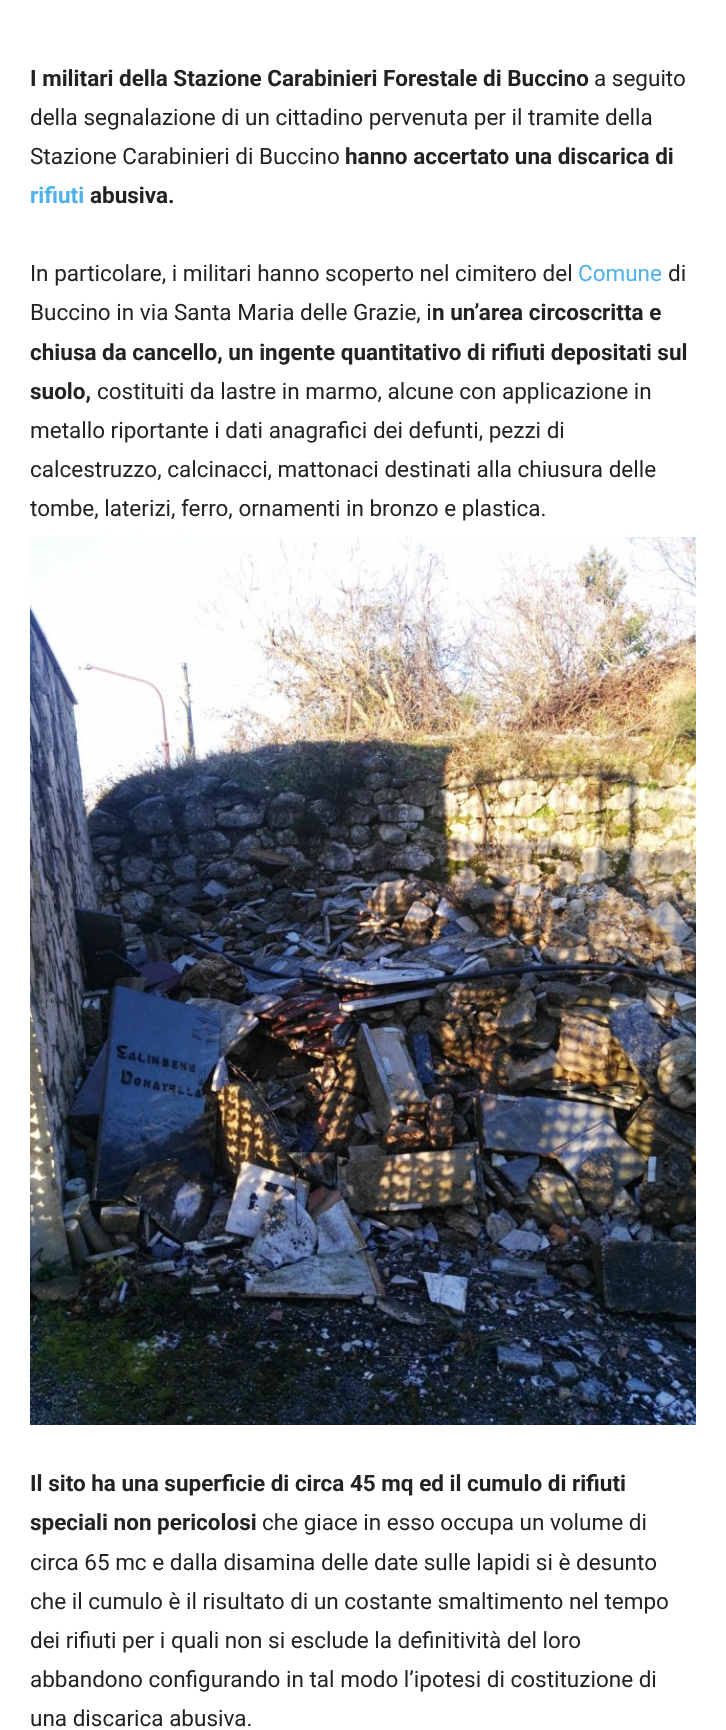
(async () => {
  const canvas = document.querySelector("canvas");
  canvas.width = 726;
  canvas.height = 1730;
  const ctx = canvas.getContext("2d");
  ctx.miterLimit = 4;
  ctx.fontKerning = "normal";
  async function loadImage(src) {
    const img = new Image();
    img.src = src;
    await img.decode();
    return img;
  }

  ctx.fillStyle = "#ffffff";
  ctx.fillRect(0, 0, 726, 1730);
  ctx.drawImage(await loadImage("img/1.png"), 30, 537, 666, 888);
  ctx.font = "bold 22.5px Roboto";
  ctx.fillStyle = "#222222";
  ctx.fillText("I militari della Stazione Carabinieri Forestale di Buccino", 30, 86);
  ctx.font = "22.5px Roboto";
  for (const [text, x, y] of [
    ["a seguito", 594, 86],
    ["della segnalazione di un cittadino pervenuta per il tramite della", 30, 125],
    ["Stazione Carabinieri di Buccino", 30, 164],
  ]) {
    ctx.fillText(text, x, y);
  }
  ctx.font = "bold 22.5px Roboto";
  ctx.fillText("hanno accertato una discarica di", 345, 164);
  ctx.fillStyle = "#4db2ec";
  ctx.fillText("rifiuti", 30, 203);
  ctx.fillStyle = "#222222";
  ctx.fillText("abusiva.", 90, 203);
  ctx.font = "22.5px Roboto";
  ctx.fillText("In particolare, i militari hanno scoperto nel cimitero del", 30, 281);
  ctx.fillStyle = "#4db2ec";
  ctx.fillText("Comune", 578, 281);
  ctx.fillStyle = "#222222";
  ctx.fillText("di", 668, 281);
  ctx.fillText("Buccino in via Santa Maria delle Grazie, i", 30, 320);
  ctx.font = "bold 22.5px Roboto";
  for (const [text, x, y] of [
    ["n un’area circoscritta e", 432, 320],
    ["chiusa da cancello, un ingente quantitativo di rifiuti depositati sul", 30, 360],
    ["suolo,", 30, 399],
  ]) {
    ctx.fillText(text, x, y);
  }
  ctx.font = "22.5px Roboto";
  for (const [text, x, y] of [
    ["costituiti da lastre in marmo, alcune con applicazione in", 97, 399],
    ["metallo riportante i dati anagrafici dei defunti, pezzi di", 30, 438],
    ["calcestruzzo, calcinacci, mattonaci destinati alla chiusura delle", 30, 477],
    ["tombe, laterizi, ferro, ornamenti in bronzo e plastica.", 30, 516],
  ]) {
    ctx.fillText(text, x, y);
  }
  ctx.font = "bold 22.5px Roboto";
  ctx.fillText("Il sito ha una superficie di circa 45 mq ed il cumulo di rifiuti", 30, 1491);
  ctx.fillText("speciali non pericolosi", 30, 1530);
  ctx.font = "22.5px Roboto";
  for (const [text, x, y] of [
    ["che giace in esso occupa un volume di", 262, 1530],
    ["circa 65 mc e dalla disamina delle date sulle lapidi si è desunto", 30, 1570],
    ["che il cumulo è il risultato di un costante smaltimento nel tempo", 30, 1609],
    ["dei rifiuti per i quali non si esclude la definitività del loro", 30, 1648],
    ["abbandono configurando in tal modo l’ipotesi di costituzione di", 30, 1687],
    ["una discarica abusiva.", 30, 1726],
  ]) {
    ctx.fillText(text, x, y);
  }
})();
